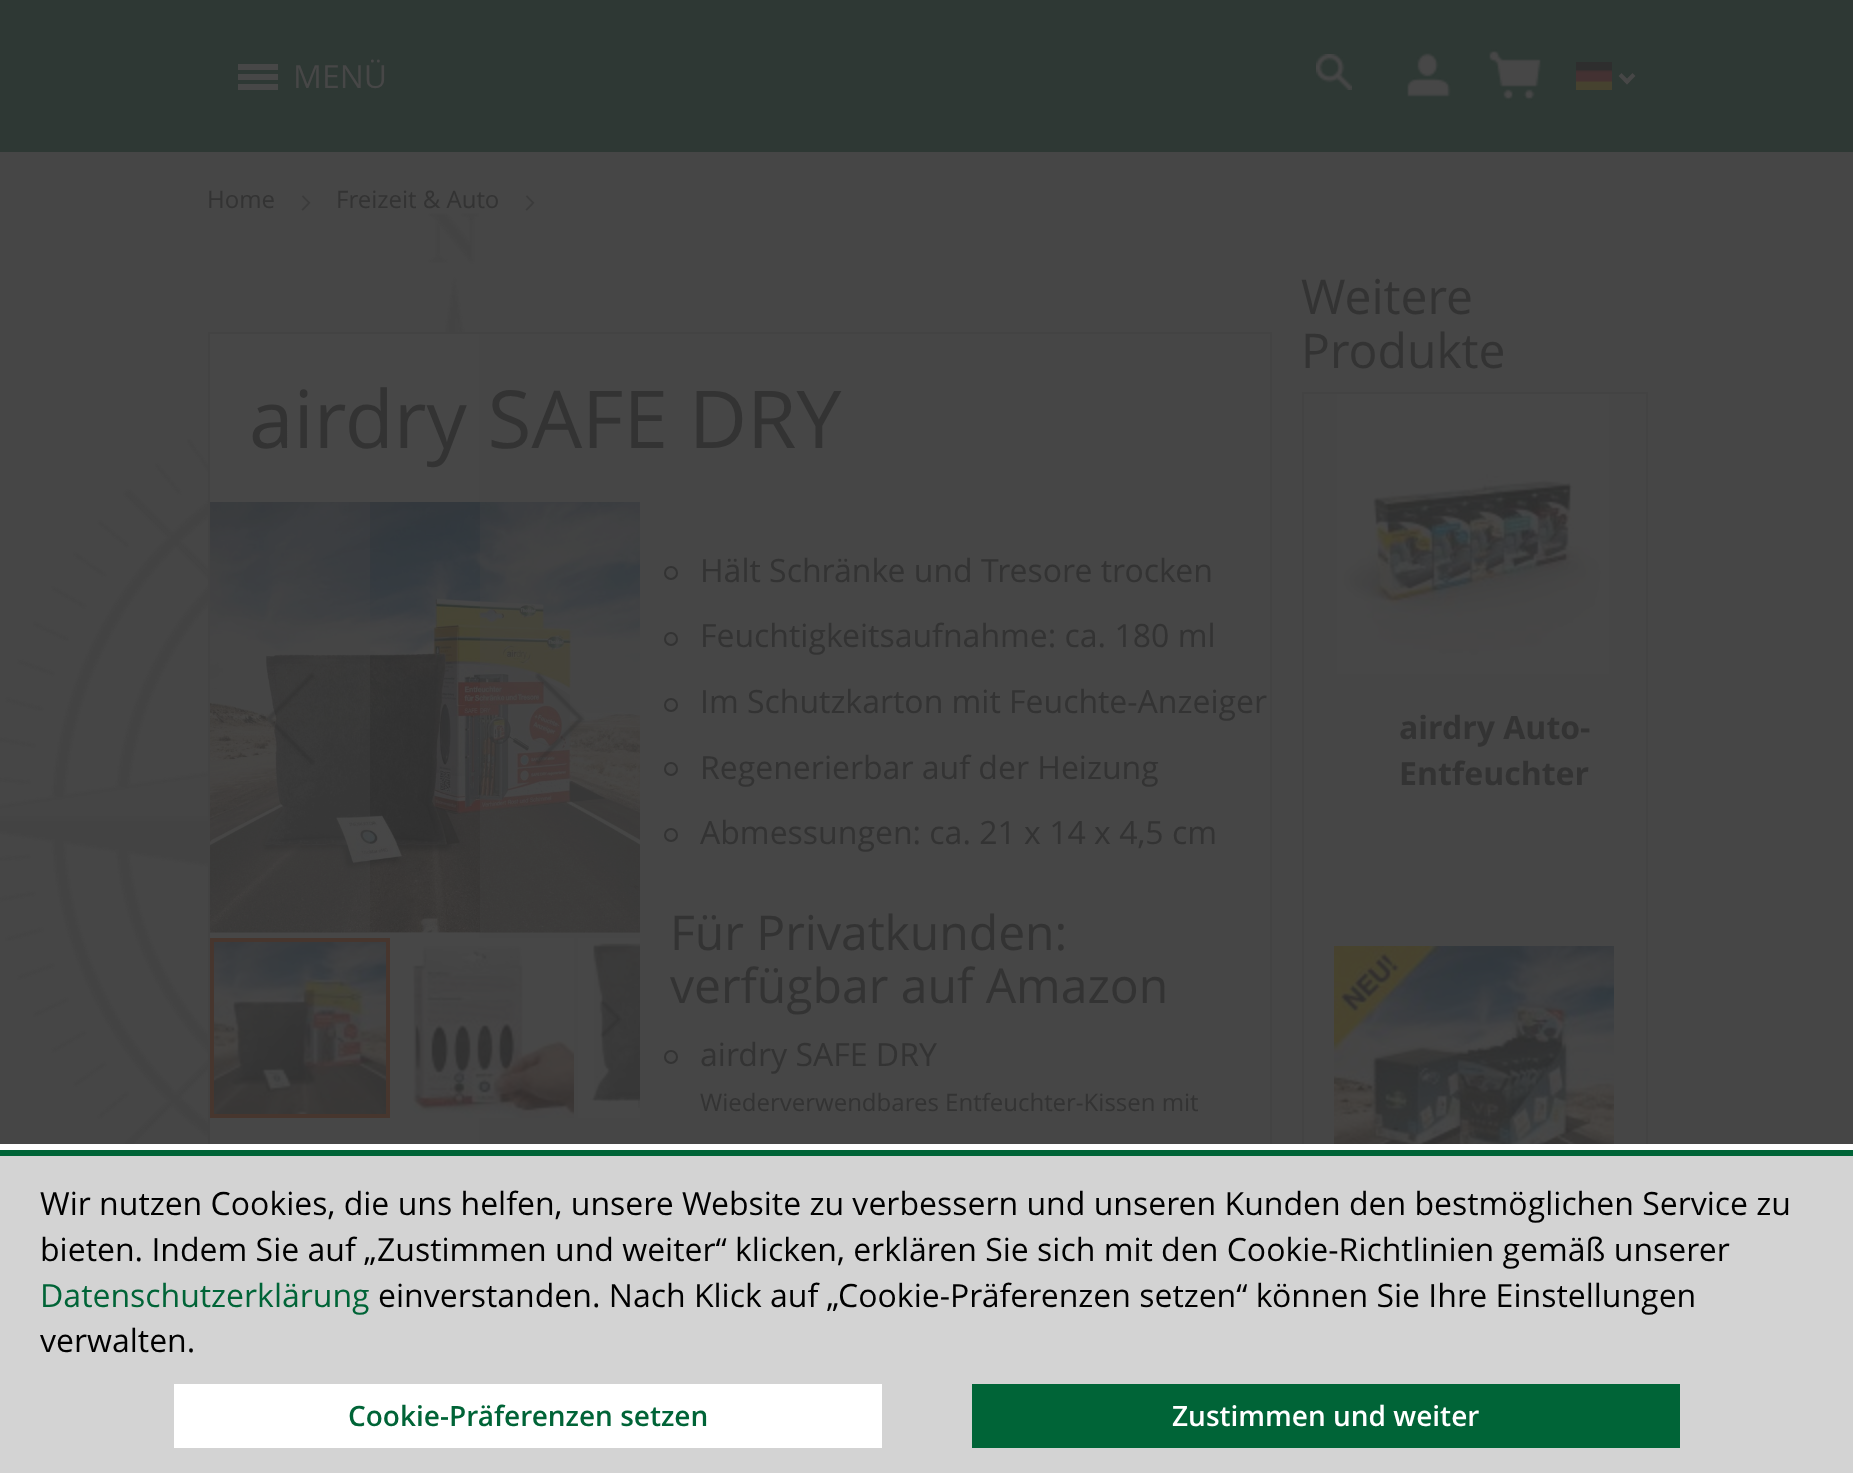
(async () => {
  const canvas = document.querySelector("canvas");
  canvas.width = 1853;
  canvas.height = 1473;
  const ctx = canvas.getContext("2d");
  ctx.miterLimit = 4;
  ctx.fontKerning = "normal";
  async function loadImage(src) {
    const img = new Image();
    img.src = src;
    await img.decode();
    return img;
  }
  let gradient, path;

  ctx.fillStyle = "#464646";
  ctx.fillRect(0, 0, 1853, 1473);
  for (const [x, y, w, h, color] of [
    [0, 0, 1853, 152, "#2e3834"],
    [238, 64, 40, 6, "#474747"],
    [238, 74, 40, 6, "#474747"],
    [238, 84, 40, 6, "#474747"],
  ]) {
    ctx.fillStyle = color;
    ctx.fillRect(x, y, w, h);
  }
  ctx.drawImage(await loadImage("img/1.png"), 1316, 54, 36, 36);
  ctx.drawImage(await loadImage("img/2.png"), 1407, 53, 44, 44);
  ctx.drawImage(await loadImage("img/3.png"), 1489, 49, 52, 52);
  ctx.drawImage(await loadImage("img/4.png"), 1576, 62, 36, 28);
  path = new Path2D("M1632.5 73L1635.5 76L1627 84.5L1624 81.5Z");
  ctx.fill(path);
  path = new Path2D("M1621.5 73L1630 81.5L1627 84.5L1618.5 76Z");
  ctx.fill(path);
  ctx.drawImage(await loadImage("img/5.png"), 0, 213, 479, 931);
  ctx.drawImage(await loadImage("img/6.png"), 301, 195, 10, 16);
  ctx.drawImage(await loadImage("img/6.png"), 525, 195, 10, 16);
  ctx.fillRect(210, 334, 269, 810);
  ctx.strokeStyle = "#434343";
  ctx.lineWidth = 2;
  ctx.strokeRect(209, 333, 1062, 1032);
  ctx.drawImage(await loadImage("img/7.png"), 210, 502, 430, 431);
  ctx.fillStyle = "rgba(71, 71, 71, 0.3)";
  ctx.fillRect(210, 502, 160, 430);
  ctx.drawImage(await loadImage("img/8.png"), 265, 673, 50, 92);
  ctx.fillRect(480, 502, 160, 430);
  ctx.drawImage(await loadImage("img/9.png"), 535, 672, 50, 93);
  ctx.drawImage(await loadImage("img/12.png"), 214, 942, 172, 172);
  ctx.strokeStyle = "#47362e";
  ctx.lineWidth = 4;
  ctx.strokeRect(212, 940, 176, 176);
  ctx.drawImage(await loadImage("img/10.png"), 394, 938, 180, 180);
  ctx.drawImage(await loadImage("img/11.png"), 578, 938, 62, 180);
  ctx.fillRect(594, 945, 46, 155);
  ctx.drawImage(await loadImage("img/13.png"), 600, 1000, 22, 38);
  gradient = ctx.createLinearGradient(639, 934, 639, 1122);
  gradient.addColorStop(0, "rgba(46, 46, 46, 0)");
  gradient.addColorStop(0.25, "rgba(46, 46, 46, 0.2)");
  gradient.addColorStop(0.75, "rgba(46, 46, 46, 0.3)");
  gradient.addColorStop(1, "rgba(46, 46, 46, 0)");
  ctx.fillStyle = gradient;
  ctx.fillRect(638, 1100, 2, 8);
  ctx.beginPath();
  ctx.arc(671, 573, 6, 0, Math.PI * 2);
  ctx.strokeStyle = "#333333";
  ctx.lineWidth = 2;
  ctx.stroke();
  ctx.beginPath();
  ctx.arc(671, 639, 6, 0, Math.PI * 2);
  ctx.stroke();
  ctx.beginPath();
  ctx.arc(671, 705, 6, 0, Math.PI * 2);
  ctx.stroke();
  ctx.beginPath();
  ctx.arc(671, 769, 6, 0, Math.PI * 2);
  ctx.stroke();
  ctx.beginPath();
  ctx.arc(671, 835, 6, 0, Math.PI * 2);
  ctx.stroke();
  ctx.beginPath();
  ctx.arc(671, 1057, 6, 0, Math.PI * 2);
  ctx.stroke();
  ctx.strokeStyle = "#434343";
  ctx.strokeRect(1303, 393, 344, 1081);
  ctx.drawImage(await loadImage("img/14.png"), 1337, 394, 272, 280);
  ctx.drawImage(await loadImage("img/15.png"), 1334, 946, 280, 198);
  for (const [x, y, w, h, color] of [
    [0, 1156, 1853, 317, "#d3d3d3"],
    [0, 1144, 1853, 6, "#ffffff"],
    [0, 1150, 1853, 6, "#006437"],
    [174, 1384, 708, 64, "#ffffff"],
    [972, 1384, 708, 64, "#006437"],
  ]) {
    ctx.fillStyle = color;
    ctx.fillRect(x, y, w, h);
  }
  ctx.font = "32px Open Sans";
  ctx.fillStyle = "#474747";
  ctx.fillText("MENÜ", 293, 88);
  ctx.font = "24px Open Sans";
  ctx.fillStyle = "#333333";
  ctx.fillText("Home", 207, 208);
  ctx.fillText("Freizeit & Auto", 336, 208);
  ctx.font = "80px Open Sans";
  ctx.fillText("airdry SAFE DRY", 249, 448);
  ctx.font = "32px Open Sans";
  for (const [text, x, y] of [
    ["Hält Schränke und Tresore trocken", 700, 582],
    ["Feuchtigkeitsaufnahme: ca. 180 ml", 700, 647],
    ["Im Schutzkarton mit Feuchte-Anzeiger", 700, 713],
    ["Regenerierbar auf der Heizung", 700, 779],
    ["Abmessungen: ca. 21 x 14 x 4,5 cm", 700, 844],
  ]) {
    ctx.fillText(text, x, y);
  }
  ctx.font = "48px Open Sans";
  ctx.fillText("Für Privatkunden:", 670, 950);
  ctx.fillText("verfügbar auf Amazon", 670, 1003);
  ctx.font = "32px Open Sans";
  ctx.fillText("airdry SAFE DRY", 700, 1066);
  ctx.font = "24px Open Sans";
  ctx.fillText("Wiederverwendbares Entfeuchter-Kissen mit", 700, 1111);
  ctx.font = "48px Open Sans";
  ctx.fillText("Weitere", 1301, 314);
  ctx.fillText("Produkte", 1301, 368);
  ctx.font = "bold 32px Open Sans";
  ctx.fillText("airdry Auto-", 1399, 739);
  ctx.fillText("Entfeuchter", 1399, 785);
  ctx.font = "32px Open Sans";
  ctx.fillStyle = "#000000";
  ctx.fillText("Wir nutzen Cookies, die uns helfen, unsere Website zu verbessern und unseren Kunden den bestmöglichen Service zu", 40, 1215);
  ctx.fillText("bieten. Indem Sie auf „Zustimmen und weiter“ klicken, erklären Sie sich mit den Cookie-Richtlinien gemäß unserer", 40, 1261);
  ctx.fillStyle = "#006437";
  ctx.fillText("Datenschutzerklärung", 40, 1307);
  ctx.fillStyle = "#000000";
  ctx.fillText("einverstanden. Nach Klick auf „Cookie-Präferenzen setzen“ können Sie Ihre Einstellungen", 378, 1307);
  ctx.fillText("verwalten.", 40, 1352);
  ctx.font = "600 28px Open Sans";
  ctx.fillStyle = "#006437";
  ctx.fillText("Cookie-Präferenzen setzen", 348, 1426);
  ctx.fillStyle = "#ffffff";
  ctx.fillText("Zustimmen und weiter", 1172, 1426);
})();
